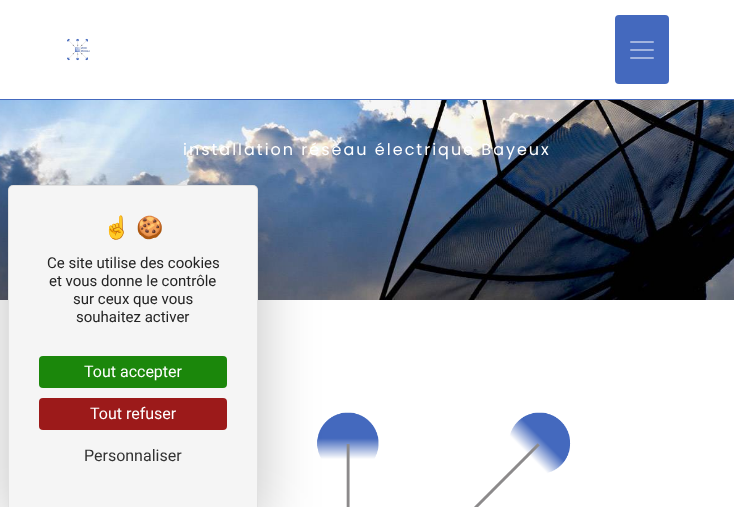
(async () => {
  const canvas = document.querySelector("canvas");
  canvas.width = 734;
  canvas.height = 507;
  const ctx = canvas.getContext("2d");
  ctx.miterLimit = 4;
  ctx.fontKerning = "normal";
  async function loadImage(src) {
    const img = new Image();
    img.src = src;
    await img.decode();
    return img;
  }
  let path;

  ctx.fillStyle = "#ffffff";
  ctx.fillRect(0, 0, 734, 507);
  ctx.fillStyle = "#4469be";
  ctx.fillRect(0, 99, 734, 1);
  ctx.drawImage(await loadImage("img/1.png"), 67, 38, 23, 23);
  ctx.beginPath();
  ctx.roundRect(615, 15, 54, 69, 4);
  ctx.fill();
  ctx.drawImage(await loadImage("img/2.png"), 630, 41, 24, 18);
  ctx.drawImage(await loadImage("img/3.png"), 0, 100, 734, 200);
  ctx.drawImage(await loadImage("img/4.png"), 317, 412, 254, 95);
  ctx.fillStyle = "rgba(0, 0, 0, 0.25)";
  ctx.filter = "blur(30px)";
  ctx.beginPath();
  ctx.roundRect(8, 205, 250, 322, 5);
  ctx.fill();
  ctx.filter = "none";
  ctx.fillStyle = "#f5f5f5";
  ctx.beginPath();
  ctx.roundRect(8, 185, 250, 322, [5, 5, 0, 0]);
  ctx.fill();
  ctx.fillStyle = "rgba(0, 0, 0, 0.08)";
  path = new Path2D("M13 185H253C256 185 258 187 258 190V507H8V190C8 187 10 185 13 185ZM13 186H253C255 186 257 188 257 190V507H9V190C9 188 11 186 13 186Z");
  ctx.fill(path, "evenodd");
  ctx.fillStyle = "#1b870b";
  ctx.beginPath();
  ctx.roundRect(39, 356, 188, 32, 4);
  ctx.fill();
  ctx.fillStyle = "#9c1a1a";
  ctx.beginPath();
  ctx.roundRect(39, 398, 188, 32, 4);
  ctx.fill();
  ctx.letterSpacing = "2px";
  ctx.font = "16px Poppins";
  ctx.fillStyle = "#ffffff";
  ctx.fillText("installation réseau électrique Bayeux", 183, 155);
  ctx.letterSpacing = "0px";
  ctx.font = "22px Noto Color Emoji";
  ctx.fillStyle = "#242424";
  ctx.fillText("☝️", 103, 235);
  ctx.fillText("🍪", 136, 235);
  ctx.font = "15px Roboto";
  for (const [text, x, y] of [
    ["Ce site utilise des cookies", 47, 268],
    ["et vous donne le contrôle", 49, 286],
    ["sur ceux que vous", 73, 304],
    ["souhaitez activer", 76, 322],
  ]) {
    ctx.fillText(text, x, y);
  }
  ctx.font = "16px Roboto";
  ctx.fillStyle = "#ffffff";
  ctx.fillText("Tout accepter", 84, 377);
  ctx.fillText("Tout refuser", 90, 419);
  ctx.fillStyle = "#333333";
  ctx.fillText("Personnaliser", 84, 461);
})();
